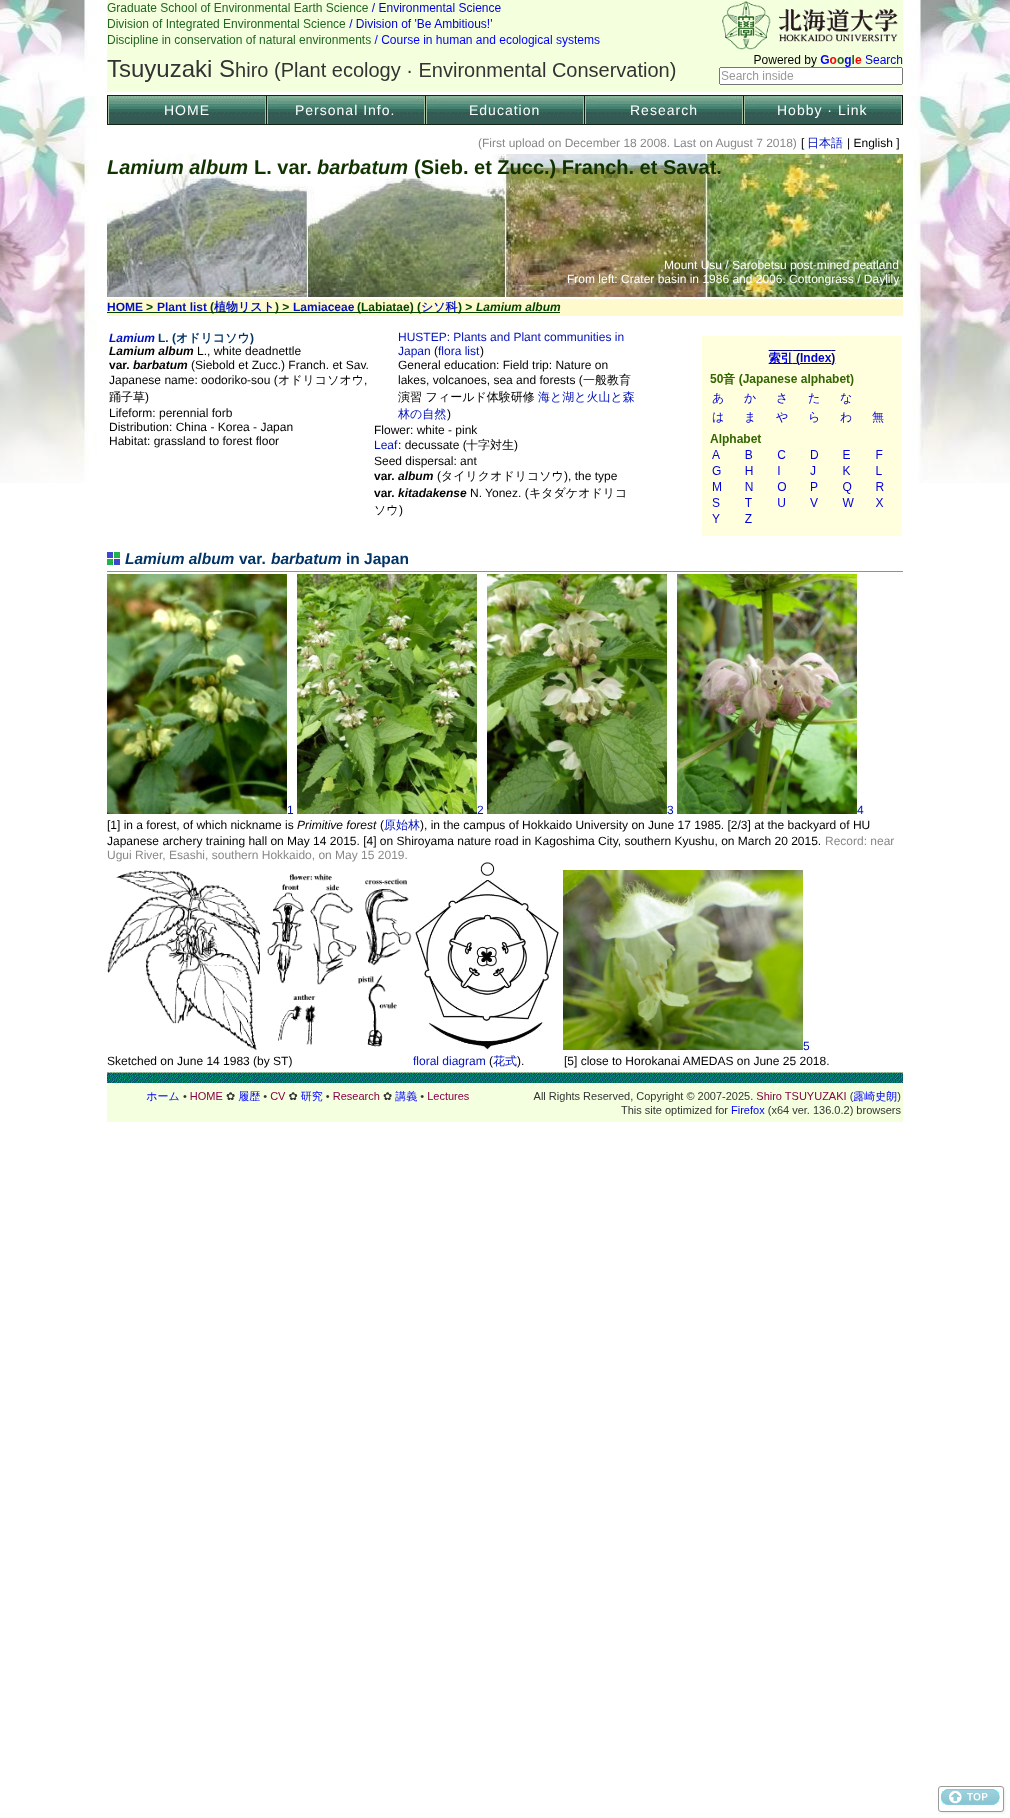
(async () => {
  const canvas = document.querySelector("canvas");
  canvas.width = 1010;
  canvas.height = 1818;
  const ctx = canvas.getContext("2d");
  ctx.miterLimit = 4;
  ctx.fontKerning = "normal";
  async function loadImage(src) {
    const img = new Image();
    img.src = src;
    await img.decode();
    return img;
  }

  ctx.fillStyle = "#ffffff";
  ctx.fillRect(0, 0, 1010, 1818);
  ctx.drawImage(await loadImage("img/1.png"), 0, 0, 1010, 483);
  ctx.drawImage(await loadImage("img/2.png"), 107, 0, 796, 92);
  ctx.drawImage(await loadImage("img/3.png"), 107, 95, 796, 30);
  ctx.drawImage(await loadImage("img/4.png"), 107, 154, 796, 143);
  for (const [x, y, w, h, color] of [
    [107, 299, 796, 17, "#fffacd"],
    [107, 312, 314, 1, "#004400"],
    [421, 312, 139, 1, "#004400"],
  ]) {
    ctx.fillStyle = color;
    ctx.fillRect(x, y, w, h);
  }
  ctx.drawImage(await loadImage("img/5.png"), 702, 336, 200, 200);
  ctx.drawImage(await loadImage("img/6.png"), 107, 552, 13, 13);
  ctx.fillStyle = "#55bb55";
  ctx.fillRect(107, 571, 796, 1);
  ctx.drawImage(await loadImage("img/7.png"), 107, 574, 180, 240);
  ctx.drawImage(await loadImage("img/8.png"), 297, 574, 180, 240);
  ctx.drawImage(await loadImage("img/9.png"), 487, 574, 180, 240);
  ctx.drawImage(await loadImage("img/10.png"), 677, 574, 180, 240);
  ctx.drawImage(await loadImage("img/11.png"), 107, 870, 305, 180);
  ctx.drawImage(await loadImage("img/12.png"), 415, 862, 144, 188);
  ctx.drawImage(await loadImage("img/13.png"), 563, 870, 240, 180);
  ctx.drawImage(await loadImage("img/14.png"), 107, 1072, 796, 50);
  ctx.fillStyle = "#ebebeb";
  ctx.filter = "blur(1px)";
  ctx.beginPath();
  ctx.roundRect(939, 1787, 66, 26, 3);
  ctx.fill();
  ctx.filter = "none";
  ctx.fillStyle = "#ffffff";
  ctx.beginPath();
  ctx.roundRect(938.5, 1786.5, 65, 25, 2.5);
  ctx.fill();
  ctx.strokeStyle = "#9a9a9a";
  ctx.stroke();
  ctx.drawImage(await loadImage("img/15.png"), 941, 1789, 59, 16);
  ctx.letterSpacing = "1px";
  ctx.font = "14px Liberation Sans";
  for (const [text, x, y] of [
    ["HOME", 164, 115],
    ["Personal Info.", 295, 115],
    ["Education", 469, 115],
    ["Research", 630, 115],
    ["Hobby · Link", 777, 115],
  ]) {
    ctx.fillText(text, x, y);
  }
  ctx.letterSpacing = "0px";
  ctx.font = "12px Liberation Sans";
  ctx.fillStyle = "#888888";
  ctx.fillText("(First upload on December 18 2008. Last on August 7 2018)", 478, 147);
  ctx.fillStyle = "#000000";
  ctx.fillText("[", 801, 147);
  ctx.font = "500 12px WenQuanYi Zen Hei";
  ctx.fillStyle = "#0011bb";
  ctx.fillText("日本語", 807, 147);
  ctx.font = "12px Liberation Sans";
  ctx.fillStyle = "#000000";
  ctx.fillText("| English ]", 847, 147);
  ctx.font = "italic bold 20px Liberation Sans";
  ctx.fillStyle = "#113300";
  ctx.fillText("Lamium album", 107, 174);
  ctx.font = "bold 20px Liberation Sans";
  ctx.fillText("L. var.", 254, 174);
  ctx.font = "italic bold 20px Liberation Sans";
  ctx.fillText("barbatum", 317, 174);
  ctx.font = "bold 20px Liberation Sans";
  ctx.fillText("(Sieb. et Zucc.) Franch. et Savat.", 414, 174);
  ctx.font = "12px Liberation Sans";
  ctx.fillStyle = "#ffffff";
  ctx.fillText("Mount Usu / Sarobetsu post-mined peatland", 664, 269);
  ctx.fillText("From left: Crater basin in 1986 and 2006. Cottongrass / Daylily", 567, 283);
  ctx.font = "bold 12px Liberation Sans";
  ctx.fillStyle = "#0011bb";
  ctx.fillText("HOME", 107, 311);
  ctx.fillStyle = "#004400";
  ctx.fillText(">", 146, 311);
  ctx.fillStyle = "#0011bb";
  ctx.fillText("Plant list", 157, 311);
  ctx.fillStyle = "#004400";
  ctx.fillText("(", 210, 311);
  ctx.font = "bold 12px WenQuanYi Zen Hei";
  ctx.fillStyle = "#0011bb";
  ctx.fillText("植物リスト", 214, 311);
  ctx.font = "bold 12px Liberation Sans";
  ctx.fillStyle = "#004400";
  ctx.fillText(") >", 275, 311);
  ctx.fillStyle = "#0011bb";
  ctx.fillText("Lamiaceae", 293, 311);
  ctx.fillStyle = "#004400";
  ctx.fillText("(Labiatae) (", 357, 311);
  ctx.font = "bold 12px WenQuanYi Zen Hei";
  ctx.fillStyle = "#0011bb";
  ctx.fillText("シソ科", 421, 311);
  ctx.font = "bold 12px Liberation Sans";
  ctx.fillStyle = "#004400";
  ctx.fillText(") >", 458, 311);
  ctx.font = "italic bold 12px Liberation Sans";
  ctx.fillText("Lamium album", 476, 311);
  ctx.fillStyle = "#0011bb";
  ctx.fillText("Lamium", 109, 342);
  ctx.font = "bold 12px Liberation Sans";
  ctx.fillStyle = "#003366";
  ctx.fillText("L. (", 158, 342);
  ctx.font = "bold 12px WenQuanYi Zen Hei";
  ctx.fillText("オドリコソウ", 176, 342);
  ctx.font = "bold 12px Liberation Sans";
  ctx.fillText(")", 250, 342);
  ctx.font = "italic bold 12px Liberation Sans";
  ctx.fillStyle = "#000000";
  ctx.fillText("Lamium album", 109, 355);
  ctx.font = "12px Liberation Sans";
  ctx.fillText("L., white deadnettle", 197, 355);
  ctx.font = "bold 12px Liberation Sans";
  ctx.fillText("var.", 109, 369);
  ctx.font = "italic bold 12px Liberation Sans";
  ctx.fillText("barbatum", 133, 369);
  ctx.font = "12px Liberation Sans";
  ctx.fillText("(Siebold et Zucc.) Franch. et Sav.", 191, 369);
  ctx.fillText("Japanese name: oodoriko-sou (", 109, 384);
  ctx.font = "500 12px WenQuanYi Zen Hei";
  ctx.fillText("オドリコソオウ", 278, 384);
  ctx.font = "12px Liberation Sans";
  ctx.fillText(",", 364, 384);
  ctx.font = "500 12px WenQuanYi Zen Hei";
  ctx.fillText("踊子草", 109, 401);
  ctx.font = "12px Liberation Sans";
  for (const [text, x, y] of [
    [")", 145, 401],
    ["Lifeform: perennial forb", 109, 417],
    ["Distribution: China - Korea - Japan", 109, 431],
    ["Habitat: grassland to forest floor", 109, 445],
  ]) {
    ctx.fillText(text, x, y);
  }
  ctx.fillStyle = "#0011bb";
  ctx.fillText("HUSTEP: Plants and Plant communities in", 398, 341);
  ctx.fillText("Japan", 398, 355);
  ctx.fillStyle = "#000000";
  ctx.fillText("(", 434, 355);
  ctx.fillStyle = "#0011bb";
  ctx.fillText("flora list", 438, 355);
  ctx.fillStyle = "#000000";
  for (const [text, x, y] of [
    [")", 480, 355],
    ["General education: Field trip: Nature on", 398, 369],
    ["lakes, volcanoes, sea and forests (", 398, 384],
  ]) {
    ctx.fillText(text, x, y);
  }
  ctx.font = "500 12px WenQuanYi Zen Hei";
  ctx.fillText("一般教育", 583, 384);
  ctx.fillText("演習 フィールド体験研修", 398, 401);
  ctx.fillStyle = "#0011bb";
  ctx.fillText("海と湖と火山と森", 538, 401);
  ctx.fillText("林の自然", 398, 418);
  ctx.font = "12px Liberation Sans";
  ctx.fillStyle = "#000000";
  ctx.fillText(")", 447, 418);
  ctx.fillText("Flower: white - pink", 374, 434);
  ctx.fillStyle = "#0011bb";
  ctx.fillText("Leaf", 374, 449);
  ctx.fillStyle = "#000000";
  ctx.fillText(": decussate (", 398, 449);
  ctx.font = "500 12px WenQuanYi Zen Hei";
  ctx.fillText("十字対生", 466, 449);
  ctx.font = "12px Liberation Sans";
  ctx.fillText(")", 514, 449);
  ctx.fillText("Seed dispersal: ant", 374, 465);
  ctx.font = "bold 12px Liberation Sans";
  ctx.fillText("var.", 374, 480);
  ctx.font = "italic bold 12px Liberation Sans";
  ctx.fillText("album", 398, 480);
  ctx.font = "12px Liberation Sans";
  ctx.fillText("(", 437, 480);
  ctx.font = "500 12px WenQuanYi Zen Hei";
  ctx.fillText("タイリクオドリコソウ", 441, 480);
  ctx.font = "12px Liberation Sans";
  ctx.fillText("), the type", 564, 480);
  ctx.font = "bold 12px Liberation Sans";
  ctx.fillText("var.", 374, 497);
  ctx.font = "italic bold 12px Liberation Sans";
  ctx.fillText("kitadakense", 398, 497);
  ctx.font = "12px Liberation Sans";
  ctx.fillText("N. Yonez. (", 470, 497);
  ctx.font = "500 12px WenQuanYi Zen Hei";
  ctx.fillText("キタダケオドリコ", 529, 497);
  ctx.fillText("ソウ", 374, 514);
  ctx.font = "12px Liberation Sans";
  ctx.fillText(")", 399, 514);
  ctx.font = "italic bold 15.5px Liberation Sans";
  ctx.fillStyle = "#003366";
  ctx.fillText("Lamium album", 125, 564);
  ctx.font = "bold 15.5px Liberation Sans";
  ctx.fillText("var.", 239, 564);
  ctx.font = "italic bold 15.5px Liberation Sans";
  ctx.fillText("barbatum", 271, 564);
  ctx.font = "bold 15.5px Liberation Sans";
  ctx.fillText("in Japan", 346, 564);
  ctx.font = "12px Liberation Sans";
  ctx.fillStyle = "#0011bb";
  for (const [text, x, y] of [
    ["1", 287, 814],
    ["2", 477, 814],
    ["3", 667, 814],
    ["4", 857, 814],
  ]) {
    ctx.fillText(text, x, y);
  }
  ctx.fillStyle = "#000000";
  ctx.fillText("[1] in a forest, of which nickname is", 107, 829);
  ctx.font = "italic 12px Liberation Sans";
  ctx.fillText("Primitive forest", 297, 829);
  ctx.font = "12px Liberation Sans";
  ctx.fillText("(", 380, 829);
  ctx.font = "500 12px WenQuanYi Zen Hei";
  ctx.fillStyle = "#0011bb";
  ctx.fillText("原始林", 384, 829);
  ctx.font = "12px Liberation Sans";
  ctx.fillStyle = "#000000";
  ctx.fillText("), in the campus of Hokkaido University on June 17 1985. [2/3] at the backyard of HU", 420, 829);
  ctx.fillText("Japanese archery training hall on May 14 2015. [4] on Shiroyama nature road in Kagoshima City, southern Kyushu, on March 20 2015.", 107, 845);
  ctx.fillStyle = "#888888";
  ctx.fillText("Record: near", 825, 845);
  ctx.fillText("Ugui River, Esashi, southern Hokkaido, on May 15 2019.", 107, 859);
  ctx.fillStyle = "#0011bb";
  ctx.fillText("5", 803, 1050);
  ctx.fillStyle = "#000000";
  ctx.fillText("Sketched on June 14 1983 (by ST)", 107, 1065);
  ctx.fillStyle = "#0011bb";
  ctx.fillText("floral diagram", 413, 1065);
  ctx.fillStyle = "#000000";
  ctx.fillText("(", 489, 1065);
  ctx.font = "500 12px WenQuanYi Zen Hei";
  ctx.fillStyle = "#0011bb";
  ctx.fillText("花式", 493, 1065);
  ctx.font = "12px Liberation Sans";
  ctx.fillStyle = "#000000";
  ctx.fillText(").", 517, 1065);
  ctx.fillText("[5] close to Horokanai AMEDAS on June 25 2018.", 564, 1065);
})();
